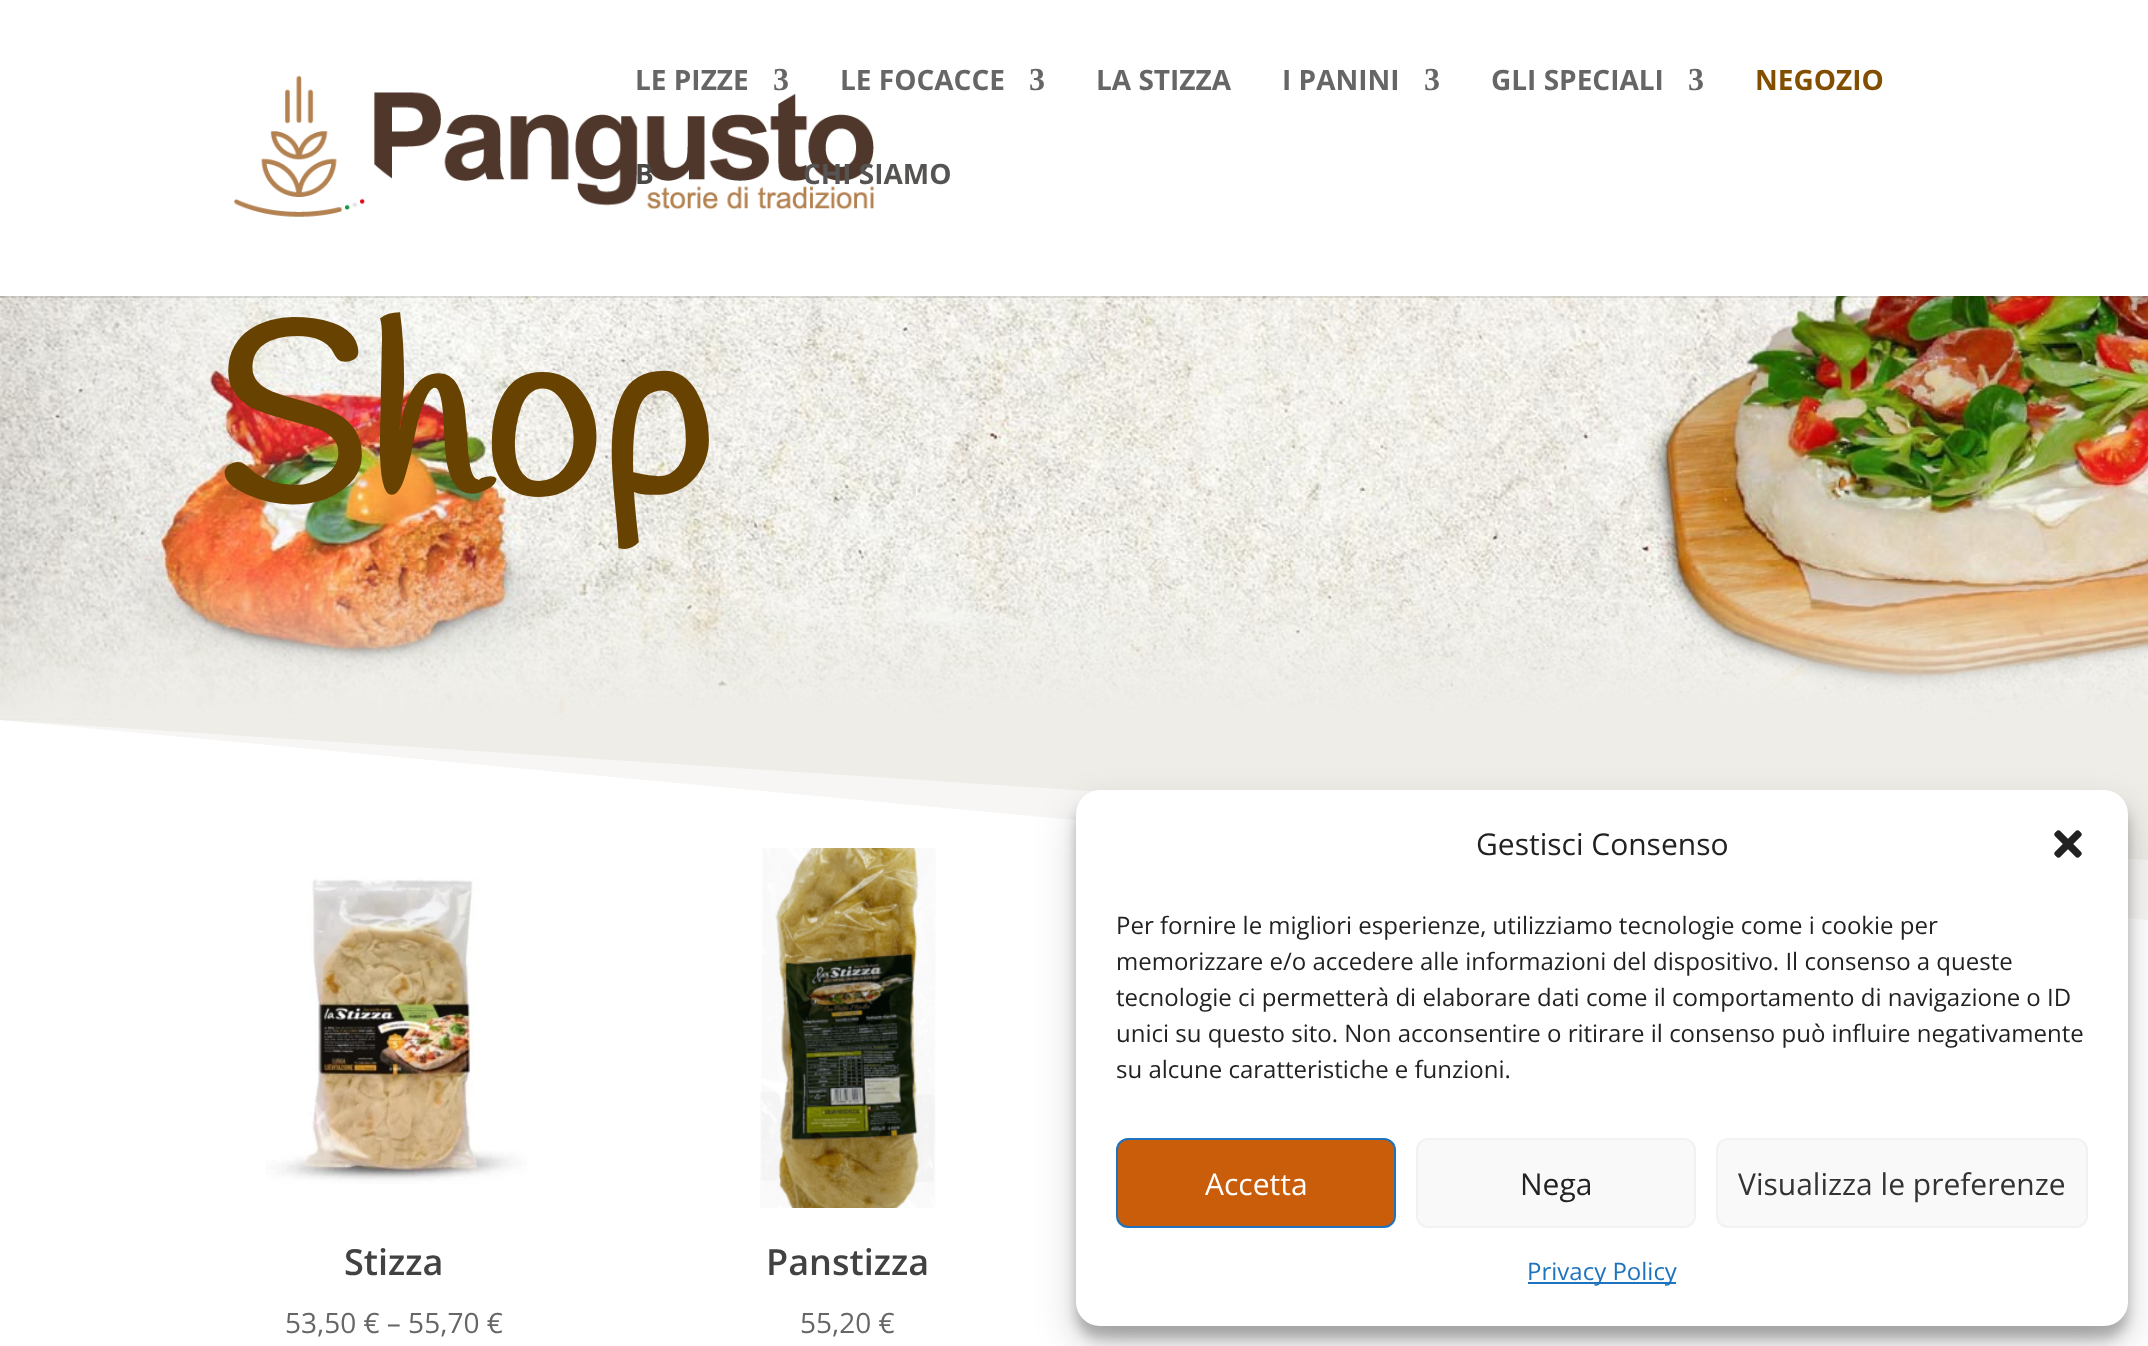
(async () => {
  const canvas = document.querySelector("canvas");
  canvas.width = 2148;
  canvas.height = 1346;
  const ctx = canvas.getContext("2d");
  ctx.miterLimit = 4;
  ctx.fontKerning = "normal";
  async function loadImage(src) {
    const img = new Image();
    img.src = src;
    await img.decode();
    return img;
  }
  let path;

  ctx.fillStyle = "#ffffff";
  ctx.fillRect(0, 0, 2148, 1346);
  ctx.drawImage(await loadImage("img/2.png"), 0, 296, 2148, 424);
  ctx.fillStyle = "rgba(0, 0, 0, 0.1)";
  ctx.fillRect(0, 296, 2148, 2);
  ctx.drawImage(await loadImage("img/1.png"), 234, 75, 640, 142);
  ctx.fillStyle = "#f7f6f4";
  path = new Path2D("M2148 920V720H0Z");
  ctx.fill(path);
  ctx.fillStyle = "#eeede8";
  path = new Path2D("M2148 860V720H0Z");
  ctx.fill(path);
  ctx.drawImage(await loadImage("img/3.png"), 266, 877, 261, 307);
  ctx.drawImage(await loadImage("img/4.png"), 760, 848, 176, 360);
  ctx.fillStyle = "rgba(0, 0, 0, 0.23)";
  ctx.filter = "blur(6px)";
  ctx.beginPath();
  ctx.roundRect(1076, 802, 1052, 536, 24);
  ctx.fill();
  ctx.filter = "none";
  ctx.fillStyle = "rgba(0, 0, 0, 0.19)";
  ctx.filter = "blur(20px)";
  ctx.beginPath();
  ctx.roundRect(1076, 810, 1052, 536, 24);
  ctx.fill();
  ctx.filter = "none";
  ctx.fillStyle = "#ffffff";
  ctx.beginPath();
  ctx.roundRect(1076, 790, 1052, 536, 24);
  ctx.fill();
  ctx.drawImage(await loadImage("img/5.png"), 2054, 830, 28, 28);
  ctx.fillStyle = "#c95d0a";
  ctx.beginPath();
  ctx.roundRect(1117, 1139, 278, 88, 11);
  ctx.fill();
  ctx.strokeStyle = "#1e73be";
  ctx.lineWidth = 2;
  ctx.stroke();
  ctx.fillStyle = "#f9f9f9";
  ctx.beginPath();
  ctx.roundRect(1417, 1139, 278, 88, 11);
  ctx.fill();
  ctx.strokeStyle = "#f2f2f2";
  ctx.stroke();
  ctx.beginPath();
  ctx.roundRect(1717, 1139, 370, 88, 11);
  ctx.fill();
  ctx.stroke();
  ctx.fillStyle = "#1e73be";
  ctx.fillRect(1528, 1282, 148, 2);
  ctx.font = "bold 28px Open Sans";
  ctx.fillStyle = "#666666";
  ctx.fillText("LE PIZZE", 635, 90);
  ctx.font = "bold 32px Liberation Serif";
  ctx.fillText("3", 773, 90);
  ctx.font = "bold 28px Open Sans";
  ctx.fillText("LE FOCACCE", 840, 90);
  ctx.font = "bold 32px Liberation Serif";
  ctx.fillText("3", 1029, 90);
  ctx.font = "bold 28px Open Sans";
  ctx.fillText("LA STIZZA", 1096, 90);
  ctx.fillText("I PANINI", 1282, 90);
  ctx.font = "bold 32px Liberation Serif";
  ctx.fillText("3", 1424, 90);
  ctx.font = "bold 28px Open Sans";
  ctx.fillText("GLI SPECIALI", 1491, 90);
  ctx.font = "bold 32px Liberation Serif";
  ctx.fillText("3", 1688, 90);
  ctx.font = "bold 28px Open Sans";
  ctx.fillStyle = "#824e00";
  ctx.fillText("NEGOZIO", 1755, 90);
  ctx.fillStyle = "#4b4745";
  ctx.fillText("B", 635, 184);
  ctx.fillStyle = "#565453";
  ctx.fillText("CHI SIAMO", 803, 184);
  ctx.font = "bold 240px Handlee";
  ctx.fillStyle = "#684200";
  ctx.fillText("Shop", 215, 497);
  ctx.font = "600 36px Open Sans";
  ctx.fillStyle = "#424242";
  ctx.fillText("Stizza", 344, 1275);
  ctx.font = "28px Open Sans";
  ctx.fillStyle = "#666666";
  ctx.fillText("53,50 € – 55,70 €", 285, 1333);
  ctx.font = "600 36px Open Sans";
  ctx.fillStyle = "#424242";
  ctx.fillText("Panstizza", 766, 1275);
  ctx.font = "28px Open Sans";
  ctx.fillStyle = "#666666";
  ctx.fillText("55,20 €", 800, 1333);
  ctx.font = "30px Open Sans";
  ctx.fillStyle = "#222222";
  ctx.fillText("Gestisci Consenso", 1476, 855);
  ctx.font = "24px Open Sans";
  for (const [text, x, y] of [
    ["Per fornire le migliori esperienze, utilizziamo tecnologie come i cookie per", 1116, 934],
    ["memorizzare e/o accedere alle informazioni del dispositivo. Il consenso a queste", 1116, 970],
    ["tecnologie ci permetterà di elaborare dati come il comportamento di navigazione o ID", 1116, 1006],
    ["unici su questo sito. Non acconsentire o ritirare il consenso può influire negativamente", 1116, 1042],
    ["su alcune caratteristiche e funzioni.", 1116, 1078],
  ]) {
    ctx.fillText(text, x, y);
  }
  ctx.font = "30px Open Sans";
  ctx.fillStyle = "#ffffff";
  ctx.fillText("Accetta", 1205, 1195);
  ctx.fillStyle = "#222222";
  ctx.fillText("Nega", 1520, 1195);
  ctx.fillStyle = "#333333";
  ctx.fillText("Visualizza le preferenze", 1738, 1195);
  ctx.font = "24px Open Sans";
  ctx.fillStyle = "#1e73be";
  ctx.fillText("Privacy Policy", 1527, 1280);
})();
